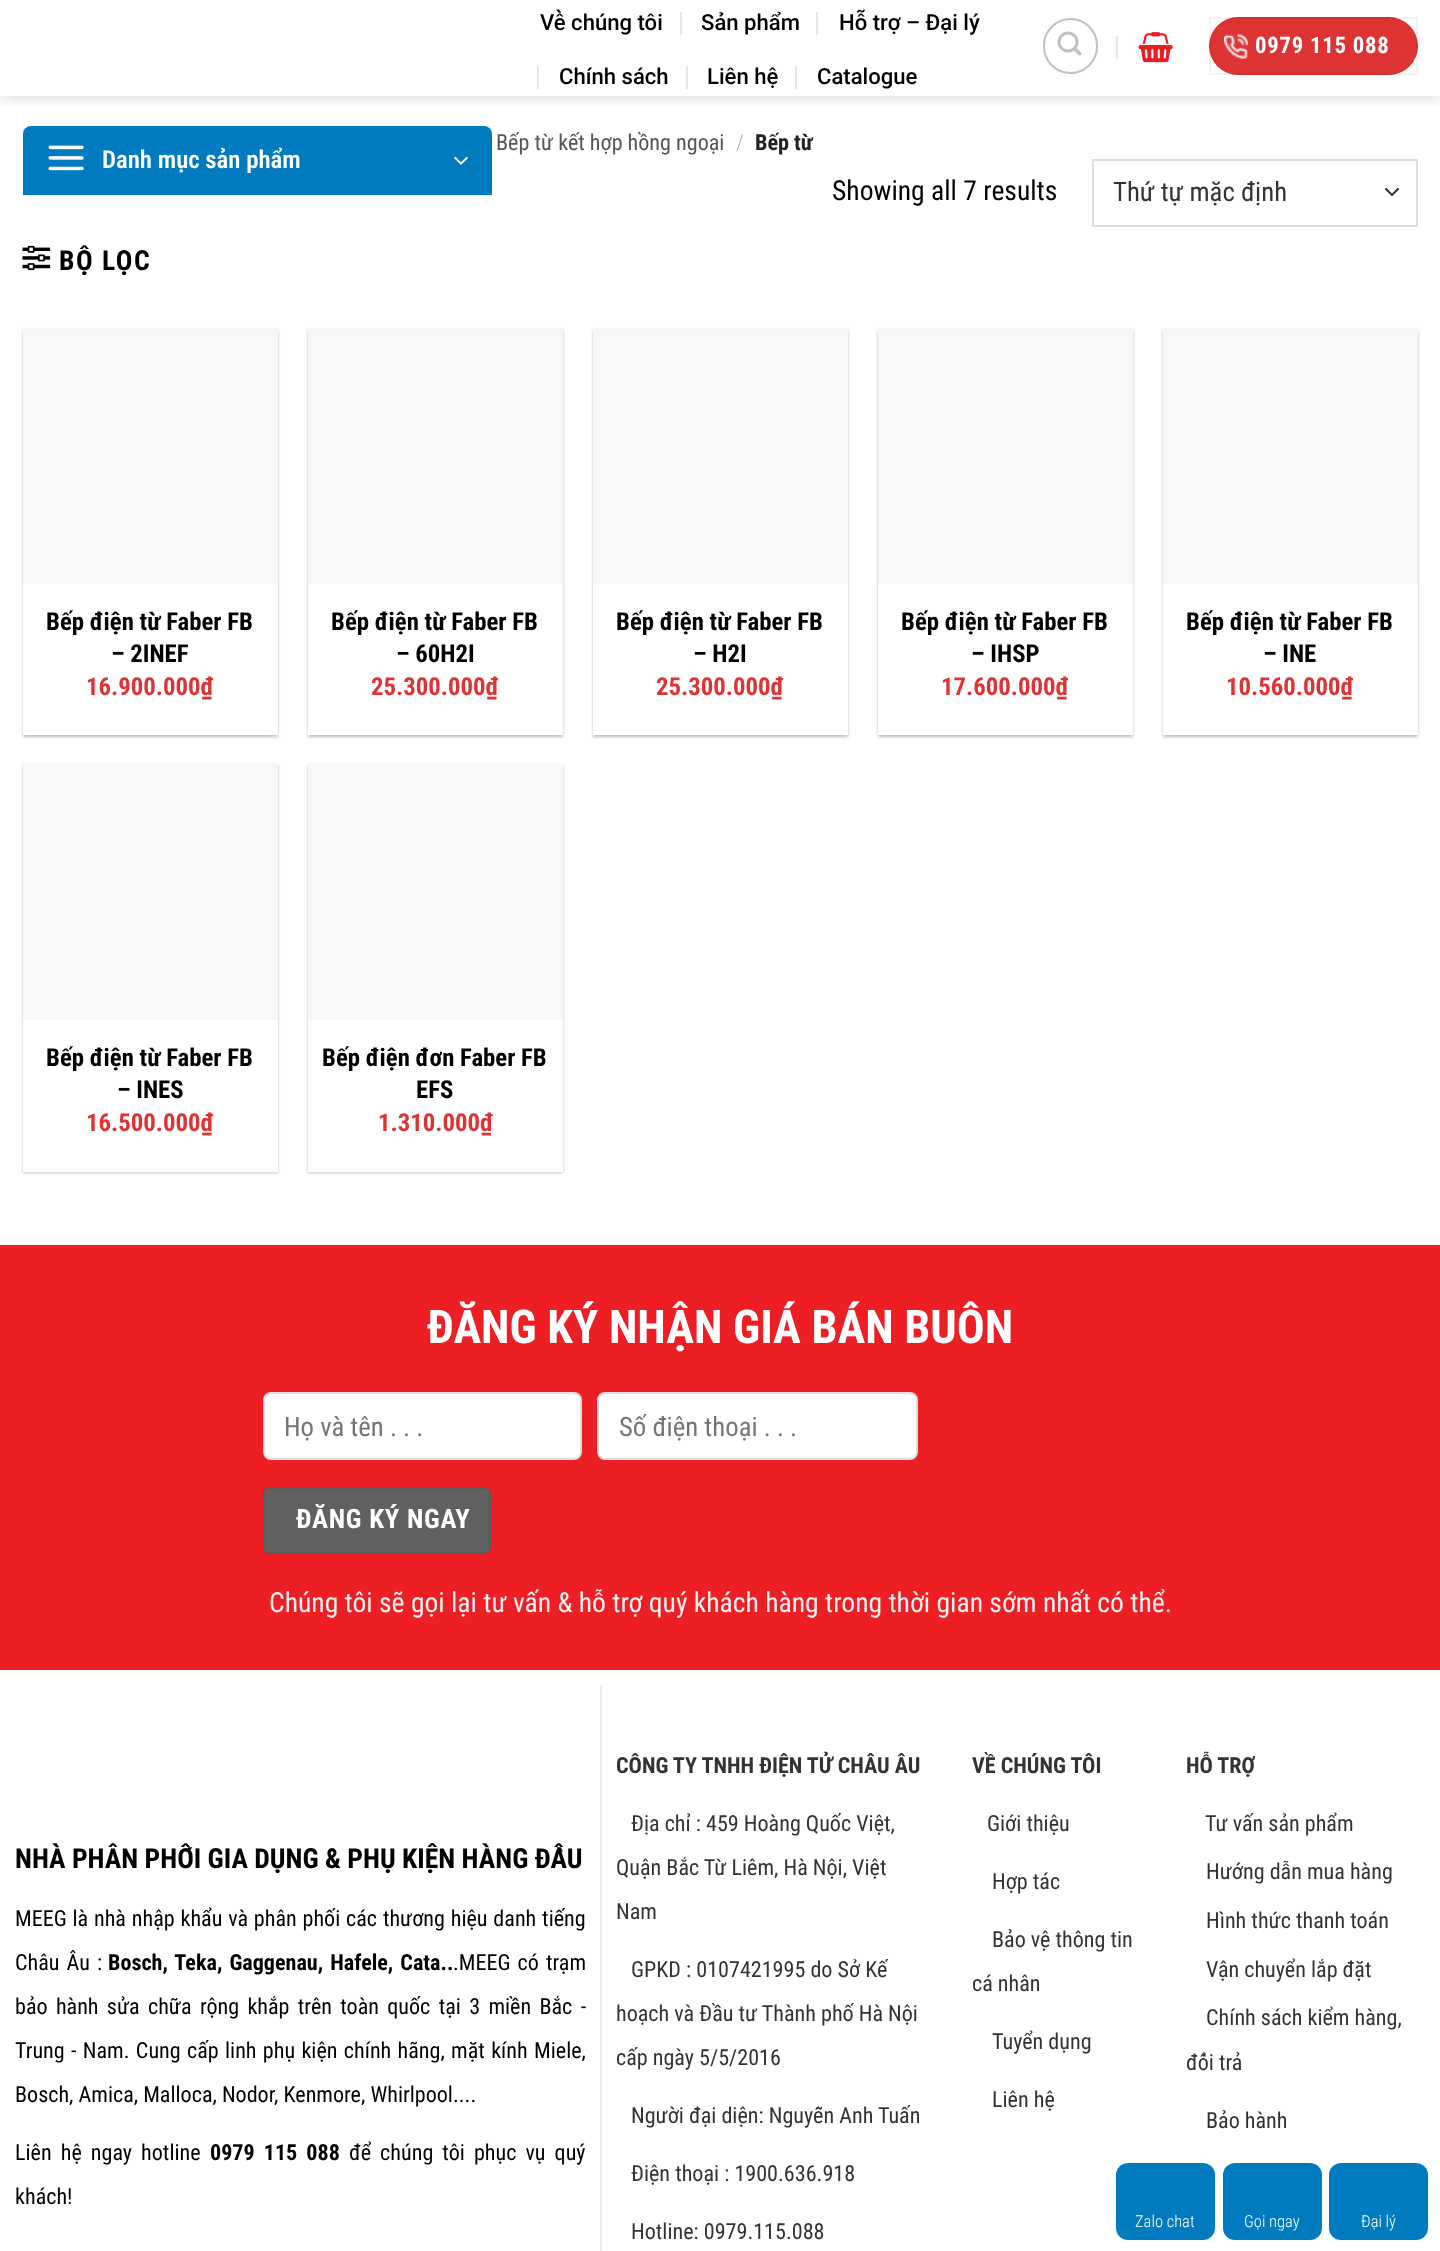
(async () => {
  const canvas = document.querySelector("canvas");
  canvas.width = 1440;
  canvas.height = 2251;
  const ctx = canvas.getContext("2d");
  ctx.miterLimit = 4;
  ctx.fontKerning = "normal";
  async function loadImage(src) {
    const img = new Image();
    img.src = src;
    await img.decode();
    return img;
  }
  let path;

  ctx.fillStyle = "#ffffff";
  ctx.fillRect(0, 0, 1440, 2251);
  ctx.save();
  ctx.beginPath();
  ctx.rect(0, 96, 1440, 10);
  ctx.clip();
  ctx.fillStyle = "rgba(0, 0, 0, 0.15)";
  ctx.filter = "blur(7.5px)";
  ctx.beginPath();
  ctx.rect(2, 2, 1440, 96);
  ctx.fill();
  ctx.filter = "none";
  ctx.restore();
  for (const [x, y, w, h, color] of [
    [680, 12, 2, 23, "#e6e6e6"],
    [816, 12, 2, 23, "#e6e6e6"],
    [537, 66, 2, 23, "#e6e6e6"],
    [686, 66, 2, 23, "#e6e6e6"],
    [795, 66, 2, 23, "#e6e6e6"],
  ]) {
    ctx.fillStyle = color;
    ctx.fillRect(x, y, w, h);
  }
  ctx.beginPath();
  ctx.roundRect(1044, 19, 53, 54, 26.5);
  ctx.strokeStyle = "#c0c0c0";
  ctx.lineWidth = 2;
  ctx.stroke();
  ctx.drawImage(await loadImage("img/1.png"), 1057, 31, 25, 25);
  ctx.fillRect(1116, 36, 2, 23);
  ctx.drawImage(await loadImage("img/2.png"), 1138, 32, 35, 31);
  ctx.fillStyle = "#dd3333";
  ctx.beginPath();
  ctx.roundRect(1209, 17, 209, 58, 29);
  ctx.fill();
  ctx.drawImage(await loadImage("img/3.png"), 1224, 34, 24, 25);
  ctx.strokeStyle = "rgba(0, 0, 0, 0.05)";
  ctx.strokeRect(1210, 18, 207, 56);
  ctx.fillStyle = "#007bc0";
  ctx.beginPath();
  ctx.roundRect(23, 126, 469, 69, [8, 8, 0, 0]);
  ctx.fill();
  ctx.drawImage(await loadImage("img/4.png"), 48, 145, 36, 26);
  ctx.drawImage(await loadImage("img/5.png"), 454, 156, 14, 9);
  ctx.drawImage(await loadImage("img/6.png"), 22, 245, 29, 25);
  path = new Path2D("M1386 189L1392 195L1398 189");
  ctx.strokeStyle = "#333333";
  ctx.lineCap = "round";
  ctx.lineJoin = "round";
  ctx.stroke(path);
  ctx.strokeStyle = "#dddddd";
  ctx.lineJoin = "miter";
  ctx.strokeRect(1093, 160, 324, 66);
  ctx.fillStyle = "rgba(0, 0, 0, 0.24)";
  ctx.filter = "blur(1.5px)";
  ctx.beginPath();
  ctx.rect(23, 330, 255, 407);
  ctx.fill();
  ctx.filter = "none";
  ctx.fillStyle = "rgba(0, 0, 0, 0.12)";
  ctx.filter = "blur(2px)";
  ctx.beginPath();
  ctx.rect(26, 333, 249, 401);
  ctx.fill();
  ctx.filter = "none";
  ctx.fillStyle = "#ffffff";
  ctx.fillRect(23, 584, 255, 151);
  ctx.fillStyle = "#f7f7f7";
  ctx.fillRect(23, 329, 255, 255);
  ctx.fillStyle = "rgba(0, 0, 0, 0.24)";
  ctx.filter = "blur(1.5px)";
  ctx.beginPath();
  ctx.rect(308, 330, 255, 407);
  ctx.fill();
  ctx.filter = "none";
  ctx.fillStyle = "rgba(0, 0, 0, 0.12)";
  ctx.filter = "blur(2px)";
  ctx.beginPath();
  ctx.rect(311, 333, 249, 401);
  ctx.fill();
  ctx.filter = "none";
  ctx.fillStyle = "#ffffff";
  ctx.fillRect(308, 584, 255, 151);
  ctx.fillStyle = "#f7f7f7";
  ctx.fillRect(308, 329, 255, 255);
  ctx.fillStyle = "rgba(0, 0, 0, 0.24)";
  ctx.filter = "blur(1.5px)";
  ctx.beginPath();
  ctx.rect(593, 330, 255, 407);
  ctx.fill();
  ctx.filter = "none";
  ctx.fillStyle = "rgba(0, 0, 0, 0.12)";
  ctx.filter = "blur(2px)";
  ctx.beginPath();
  ctx.rect(596, 333, 249, 401);
  ctx.fill();
  ctx.filter = "none";
  ctx.fillStyle = "#ffffff";
  ctx.fillRect(593, 584, 255, 151);
  ctx.fillStyle = "#f7f7f7";
  ctx.fillRect(593, 329, 255, 255);
  ctx.fillStyle = "rgba(0, 0, 0, 0.24)";
  ctx.filter = "blur(1.5px)";
  ctx.beginPath();
  ctx.rect(878, 330, 255, 407);
  ctx.fill();
  ctx.filter = "none";
  ctx.fillStyle = "rgba(0, 0, 0, 0.12)";
  ctx.filter = "blur(2px)";
  ctx.beginPath();
  ctx.rect(881, 333, 249, 401);
  ctx.fill();
  ctx.filter = "none";
  ctx.fillStyle = "#ffffff";
  ctx.fillRect(878, 584, 255, 151);
  ctx.fillStyle = "#f7f7f7";
  ctx.fillRect(878, 329, 255, 255);
  ctx.fillStyle = "rgba(0, 0, 0, 0.24)";
  ctx.filter = "blur(1.5px)";
  ctx.beginPath();
  ctx.rect(1163, 330, 255, 407);
  ctx.fill();
  ctx.filter = "none";
  ctx.fillStyle = "rgba(0, 0, 0, 0.12)";
  ctx.filter = "blur(2px)";
  ctx.beginPath();
  ctx.rect(1166, 333, 249, 401);
  ctx.fill();
  ctx.filter = "none";
  ctx.fillStyle = "#ffffff";
  ctx.fillRect(1163, 584, 255, 151);
  ctx.fillStyle = "#f7f7f7";
  ctx.fillRect(1163, 329, 255, 255);
  ctx.fillStyle = "rgba(0, 0, 0, 0.24)";
  ctx.filter = "blur(1.5px)";
  ctx.beginPath();
  ctx.rect(23, 765, 255, 408);
  ctx.fill();
  ctx.filter = "none";
  ctx.fillStyle = "#ffffff";
  ctx.fillRect(23, 1020, 255, 152);
  ctx.fillStyle = "#f7f7f7";
  ctx.fillRect(23, 764, 255, 256);
  ctx.fillStyle = "rgba(0, 0, 0, 0.24)";
  ctx.filter = "blur(1.5px)";
  ctx.beginPath();
  ctx.rect(308, 765, 255, 408);
  ctx.fill();
  ctx.filter = "none";
  for (const [x, y, w, h, color] of [
    [308, 1020, 255, 152, "#ffffff"],
    [308, 764, 255, 256, "#f7f7f7"],
    [0, 1245, 1440, 425, "#ed1f24"],
  ]) {
    ctx.fillStyle = color;
    ctx.fillRect(x, y, w, h);
  }
  ctx.fillStyle = "#ffffff";
  ctx.beginPath();
  ctx.roundRect(264, 1393, 317, 66, 7);
  ctx.fill();
  ctx.stroke();
  ctx.beginPath();
  ctx.roundRect(598, 1393, 319, 66, 7);
  ctx.fill();
  ctx.stroke();
  ctx.fillStyle = "#5f615f";
  ctx.beginPath();
  ctx.roundRect(263, 1487, 228, 67, 8);
  ctx.fill();
  ctx.strokeStyle = "rgba(0, 0, 0, 0.05)";
  ctx.strokeRect(264, 1488, 226, 65);
  ctx.fillStyle = "#ececec";
  ctx.fillRect(600, 1685, 2, 566);
  ctx.fillStyle = "#007bc0";
  ctx.beginPath();
  ctx.roundRect(1116, 2163, 99, 77, 12);
  ctx.fill();
  ctx.beginPath();
  ctx.roundRect(1223, 2163, 99, 77, 12);
  ctx.fill();
  ctx.beginPath();
  ctx.roundRect(1329, 2163, 99, 77, 12);
  ctx.fill();
  ctx.font = "500 22.1px Roboto";
  ctx.fillStyle = "#000000";
  for (const [text, x, y] of [
    ["Về chúng tôi", 540, 30],
    ["Sản phẩm", 701, 30],
    ["Hỗ trợ – Đại lý", 839, 30],
    ["Chính sách", 559, 84],
    ["Liên hệ", 707, 84],
    ["Catalogue", 817, 84],
  ]) {
    ctx.fillText(text, x, y);
  }
  ctx.letterSpacing = "0.75px";
  ctx.font = "bold 22.75px Roboto Condensed";
  ctx.fillStyle = "#ffffff";
  ctx.fillText("0979 115 088", 1255, 53);
  ctx.letterSpacing = "0px";
  ctx.font = "600 24.75px Roboto Condensed";
  ctx.fillText("Danh mục sản phẩm", 102, 168);
  ctx.font = "22.1px Roboto Condensed";
  ctx.fillStyle = "#555555";
  ctx.fillText("Bếp từ kết hợp hồng ngoại", 496, 150);
  ctx.font = "300 22.1px Roboto Condensed";
  ctx.fillStyle = "#b2b2b2";
  ctx.fillText("/", 736, 150);
  ctx.font = "bold 22.1px Roboto Condensed";
  ctx.fillStyle = "#222222";
  ctx.fillText("Bếp từ", 755, 150);
  ctx.letterSpacing = "1.5px";
  ctx.font = "bold 27.6px Roboto Condensed";
  ctx.fillStyle = "#000000";
  ctx.fillText("BỘ LỌC", 59, 270);
  ctx.letterSpacing = "0px";
  ctx.font = "27.6px Roboto Condensed";
  ctx.fillText("Showing all 7 results", 832, 200);
  ctx.font = "26.75px Roboto Condensed";
  ctx.fillStyle = "#333333";
  ctx.fillText("Thứ tự mặc định", 1113, 201);
  ctx.font = "bold 24.75px Roboto Condensed";
  ctx.fillStyle = "#000000";
  ctx.fillText("Bếp điện từ Faber FB", 46, 630);
  ctx.fillText("– 2INEF", 111, 662);
  ctx.fillStyle = "#dd3333";
  ctx.fillText("16.900.000₫", 86, 695);
  ctx.fillStyle = "#000000";
  ctx.fillText("Bếp điện từ Faber FB", 331, 630);
  ctx.fillText("– 60H2I", 396, 662);
  ctx.fillStyle = "#dd3333";
  ctx.fillText("25.300.000₫", 371, 695);
  ctx.fillStyle = "#000000";
  ctx.fillText("Bếp điện từ Faber FB", 616, 630);
  ctx.fillText("– H2I", 693, 662);
  ctx.fillStyle = "#dd3333";
  ctx.fillText("25.300.000₫", 656, 695);
  ctx.fillStyle = "#000000";
  ctx.fillText("Bếp điện từ Faber FB", 901, 630);
  ctx.fillText("– IHSP", 971, 662);
  ctx.fillStyle = "#dd3333";
  ctx.fillText("17.600.000₫", 941, 695);
  ctx.fillStyle = "#000000";
  ctx.fillText("Bếp điện từ Faber FB", 1186, 630);
  ctx.fillText("– INE", 1263, 662);
  ctx.fillStyle = "#dd3333";
  ctx.fillText("10.560.000₫", 1226, 695);
  ctx.fillStyle = "#000000";
  ctx.fillText("Bếp điện từ Faber FB", 46, 1066);
  ctx.fillText("– INES", 117, 1098);
  ctx.fillStyle = "#dd3333";
  ctx.fillText("16.500.000₫", 86, 1131);
  ctx.fillStyle = "#000000";
  ctx.fillText("Bếp điện đơn Faber FB", 322, 1066);
  ctx.fillText("EFS", 416, 1098);
  ctx.fillStyle = "#dd3333";
  ctx.fillText("1.310.000₫", 378, 1131);
  ctx.font = "bold 46.4px Roboto Condensed";
  ctx.fillStyle = "#ffffff";
  ctx.fillText("ĐĂNG KÝ NHẬN GIÁ BÁN BUÔN", 427, 1343);
  ctx.font = "26.75px Roboto Condensed";
  ctx.fillStyle = "#757575";
  ctx.fillText("Họ và tên . . .", 284, 1436);
  ctx.fillText("Số điện thoại . . .", 619, 1436);
  ctx.letterSpacing = "0.75px";
  ctx.font = "bold 26.75px Roboto Condensed";
  ctx.fillStyle = "#ffffff";
  ctx.fillText("ĐĂNG KÝ NGAY", 296, 1528);
  ctx.letterSpacing = "0px";
  ctx.font = "27.6px Roboto Condensed";
  ctx.fillStyle = "#f1f1f1";
  ctx.fillText("Chúng tôi sẽ gọi lại tư vấn & hỗ trợ quý khách hàng trong thời gian sớm nhất có thể.", 269, 1612);
  ctx.font = "bold 27.6px Roboto Condensed";
  ctx.fillStyle = "#000000";
  ctx.fillText("NHÀ PHÂN PHỐI GIA DỤNG & PHỤ KIỆN HÀNG ĐẦU", 15, 1868);
  ctx.wordSpacing = "0.75px";
  ctx.font = "22.1px Roboto Condensed";
  ctx.fillText("MEEG là nhà nhập khẩu và phân phối các thương hiệu danh tiếng", 15, 1926);
  ctx.wordSpacing = "2px";
  ctx.fillText("Châu Âu :", 15, 1970);
  ctx.font = "bold 22.1px Roboto Condensed";
  ctx.fillText("Bosch, Teka, Gaggenau, Hafele, Cata..", 108, 1970);
  ctx.font = "22.1px Roboto Condensed";
  ctx.fillText(".MEEG có trạm", 453, 1970);
  ctx.wordSpacing = "3.25px";
  ctx.fillText("bảo hành sửa chữa rộng khắp trên toàn quốc tại 3 miền Bắc -", 15, 2014);
  ctx.wordSpacing = "1.25px";
  ctx.fillText("Trung - Nam. Cung cấp linh phụ kiện chính hãng, mặt kính Miele,", 15, 2058);
  ctx.wordSpacing = "0px";
  ctx.fillText("Bosch, Amica, Malloca, Nodor, Kenmore, Whirlpool....", 15, 2102);
  ctx.wordSpacing = "4px";
  ctx.fillText("Liên hệ ngay hotline", 15, 2160);
  ctx.font = "bold 22.1px Roboto Condensed";
  ctx.fillText("0979 115 088", 210, 2160);
  ctx.font = "22.1px Roboto Condensed";
  ctx.fillText("để chúng tôi phục vụ quý", 349, 2160);
  ctx.wordSpacing = "0px";
  ctx.fillText("khách!", 15, 2204);
  ctx.font = "bold 22.1px Roboto Condensed";
  ctx.fillStyle = "#333333";
  ctx.fillText("CÔNG TY TNHH ĐIỆN TỬ CHÂU ÂU", 616, 1773);
  ctx.font = "22.1px Roboto Condensed";
  for (const [text, x, y] of [
    ["Địa chỉ : 459 Hoàng Quốc Việt,", 631, 1831],
    ["Quận Bắc Từ Liêm, Hà Nội, Việt", 616, 1875],
    ["Nam", 616, 1919],
    ["GPKD : 0107421995 do Sở Kế", 631, 1977],
    ["hoạch và Đầu tư Thành phố Hà Nội", 616, 2021],
    ["cấp ngày 5/5/2016", 616, 2065],
    ["Người đại diện: Nguyễn Anh Tuấn", 631, 2123],
    ["Điện thoại : 1900.636.918", 631, 2181],
    ["Hotline: 0979.115.088", 631, 2239],
  ]) {
    ctx.fillText(text, x, y);
  }
  ctx.font = "bold 22.1px Roboto Condensed";
  ctx.fillText("VỀ CHÚNG TÔI", 972, 1773);
  ctx.font = "22.1px Roboto Condensed";
  for (const [text, x, y] of [
    ["Giới thiệu", 987, 1831],
    ["Hợp tác", 992, 1889],
    ["Bảo vệ thông tin", 992, 1947],
    ["cá nhân", 972, 1991],
    ["Tuyển dụng", 992, 2049],
    ["Liên hệ", 992, 2107],
  ]) {
    ctx.fillText(text, x, y);
  }
  ctx.font = "bold 22.1px Roboto Condensed";
  ctx.fillText("HỖ TRỢ", 1186, 1773);
  ctx.font = "22.1px Roboto Condensed";
  for (const [text, x, y] of [
    ["Tư vấn sản phẩm", 1205, 1831],
    ["Hướng dẫn mua hàng", 1206, 1879],
    ["Hình thức thanh toán", 1206, 1928],
    ["Vận chuyển lắp đặt", 1206, 1977],
    ["Chính sách kiểm hàng,", 1206, 2025],
    ["đổi trả", 1186, 2070],
    ["Bảo hành", 1206, 2128],
  ]) {
    ctx.fillText(text, x, y);
  }
  ctx.font = "300 16.5px Roboto Condensed";
  ctx.fillStyle = "#ffffff";
  for (const [text, x, y] of [
    ["Zalo chat", 1135, 2227],
    ["Gọi ngay", 1244, 2227],
    ["Đại lý", 1361, 2227],
  ]) {
    ctx.fillText(text, x, y);
  }
})();
